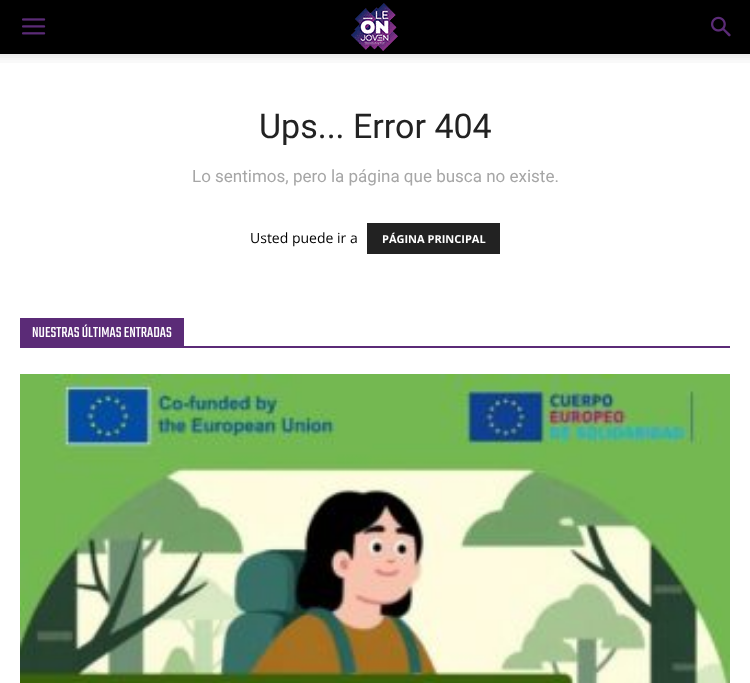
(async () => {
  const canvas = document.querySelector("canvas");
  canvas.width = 750;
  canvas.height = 683;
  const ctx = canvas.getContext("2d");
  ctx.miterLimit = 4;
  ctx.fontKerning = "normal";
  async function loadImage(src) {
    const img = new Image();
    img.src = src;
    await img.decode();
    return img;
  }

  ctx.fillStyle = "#ffffff";
  ctx.fillRect(0, 0, 750, 683);
  ctx.fillStyle = "#000000";
  ctx.fillRect(0, 0, 750, 54);
  ctx.drawImage(await loadImage("img/1.png"), 22, 18, 24, 17);
  ctx.drawImage(await loadImage("img/2.png"), 351, 3, 47, 48);
  ctx.drawImage(await loadImage("img/3.png"), 711, 16, 20, 21);
  ctx.drawImage(await loadImage("img/4.png"), 0, 54, 750, 9);
  for (const [x, y, w, h, color] of [
    [367, 223, 133, 31, "#222222"],
    [20, 346, 710, 2, "#5b2b77"],
    [20, 318, 164, 28, "#5b2b77"],
  ]) {
    ctx.fillStyle = color;
    ctx.fillRect(x, y, w, h);
  }
  ctx.drawImage(await loadImage("img/5.png"), 20, 374, 710, 309);
  ctx.font = "34px Roboto";
  ctx.fillStyle = "#222222";
  ctx.fillText("Ups... Error 404", 259, 138);
  ctx.font = "17px Roboto";
  ctx.fillStyle = "#a6a6a6";
  ctx.fillText("Lo sentimos, pero la página que busca no existe.", 192, 182);
  ctx.font = "14px Open Sans";
  ctx.fillStyle = "#000000";
  ctx.fillText("Usted puede ir a", 250, 243);
  ctx.font = "bold 11px Open Sans";
  ctx.fillStyle = "#ffffff";
  ctx.fillText("PÁGINA PRINCIPAL", 382, 243);
  ctx.font = "16px Teko";
  ctx.fillText("NUESTRAS ÚLTIMAS ENTRADAS", 32, 337);
})();
